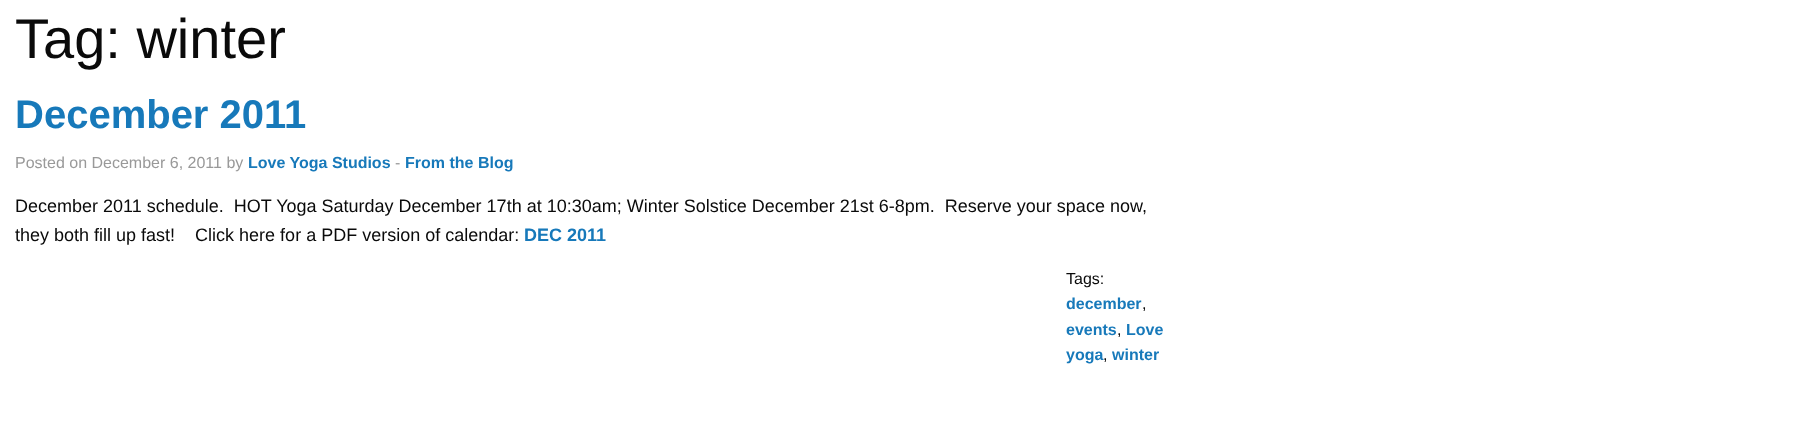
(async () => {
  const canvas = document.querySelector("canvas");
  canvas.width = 1815;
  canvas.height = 421;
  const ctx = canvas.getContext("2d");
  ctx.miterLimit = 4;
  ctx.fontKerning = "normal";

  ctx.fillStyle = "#ffffff";
  ctx.fillRect(0, 0, 1815, 421);
  ctx.font = "56px Liberation Sans";
  ctx.fillStyle = "#0a0a0a";
  ctx.fillText("Tag: winter", 15, 58);
  ctx.font = "bold 40px Liberation Sans";
  ctx.fillStyle = "#1779ba";
  ctx.fillText("December 2011", 15, 128);
  ctx.font = "16px Liberation Sans";
  ctx.fillStyle = "#999999";
  ctx.fillText("Posted on December 6, 2011 by", 15, 168);
  ctx.font = "bold 16px Liberation Sans";
  ctx.fillStyle = "#1779ba";
  ctx.fillText("Love Yoga Studios", 248, 168);
  ctx.font = "16px Liberation Sans";
  ctx.fillStyle = "#999999";
  ctx.fillText("-", 395, 168);
  ctx.font = "bold 16px Liberation Sans";
  ctx.fillStyle = "#1779ba";
  ctx.fillText("From the Blog", 405, 168);
  ctx.font = "18px Liberation Sans";
  ctx.fillStyle = "#0a0a0a";
  ctx.fillText("December 2011 schedule.  HOT Yoga Saturday December 17th at 10:30am; Winter Solstice December 21st 6-8pm.  Reserve your space now,", 15, 212);
  ctx.fillText("they both fill up fast!    Click here for a PDF version of calendar:", 15, 241);
  ctx.font = "bold 18px Liberation Sans";
  ctx.fillStyle = "#1779ba";
  ctx.fillText("DEC 2011", 524, 241);
  ctx.font = "16px Liberation Sans";
  ctx.fillStyle = "#0a0a0a";
  ctx.fillText("Tags:", 1066, 284);
  ctx.font = "bold 16px Liberation Sans";
  ctx.fillStyle = "#1779ba";
  ctx.fillText("december", 1066, 309);
  ctx.font = "16px Liberation Sans";
  ctx.fillStyle = "#0a0a0a";
  ctx.fillText(",", 1142, 309);
  ctx.font = "bold 16px Liberation Sans";
  ctx.fillStyle = "#1779ba";
  ctx.fillText("events", 1066, 335);
  ctx.font = "16px Liberation Sans";
  ctx.fillStyle = "#0a0a0a";
  ctx.fillText(",", 1117, 335);
  ctx.font = "bold 16px Liberation Sans";
  ctx.fillStyle = "#1779ba";
  ctx.fillText("Love", 1126, 335);
  ctx.fillText("yoga", 1066, 360);
  ctx.font = "16px Liberation Sans";
  ctx.fillStyle = "#0a0a0a";
  ctx.fillText(",", 1103, 360);
  ctx.font = "bold 16px Liberation Sans";
  ctx.fillStyle = "#1779ba";
  ctx.fillText("winter", 1112, 360);
})();
